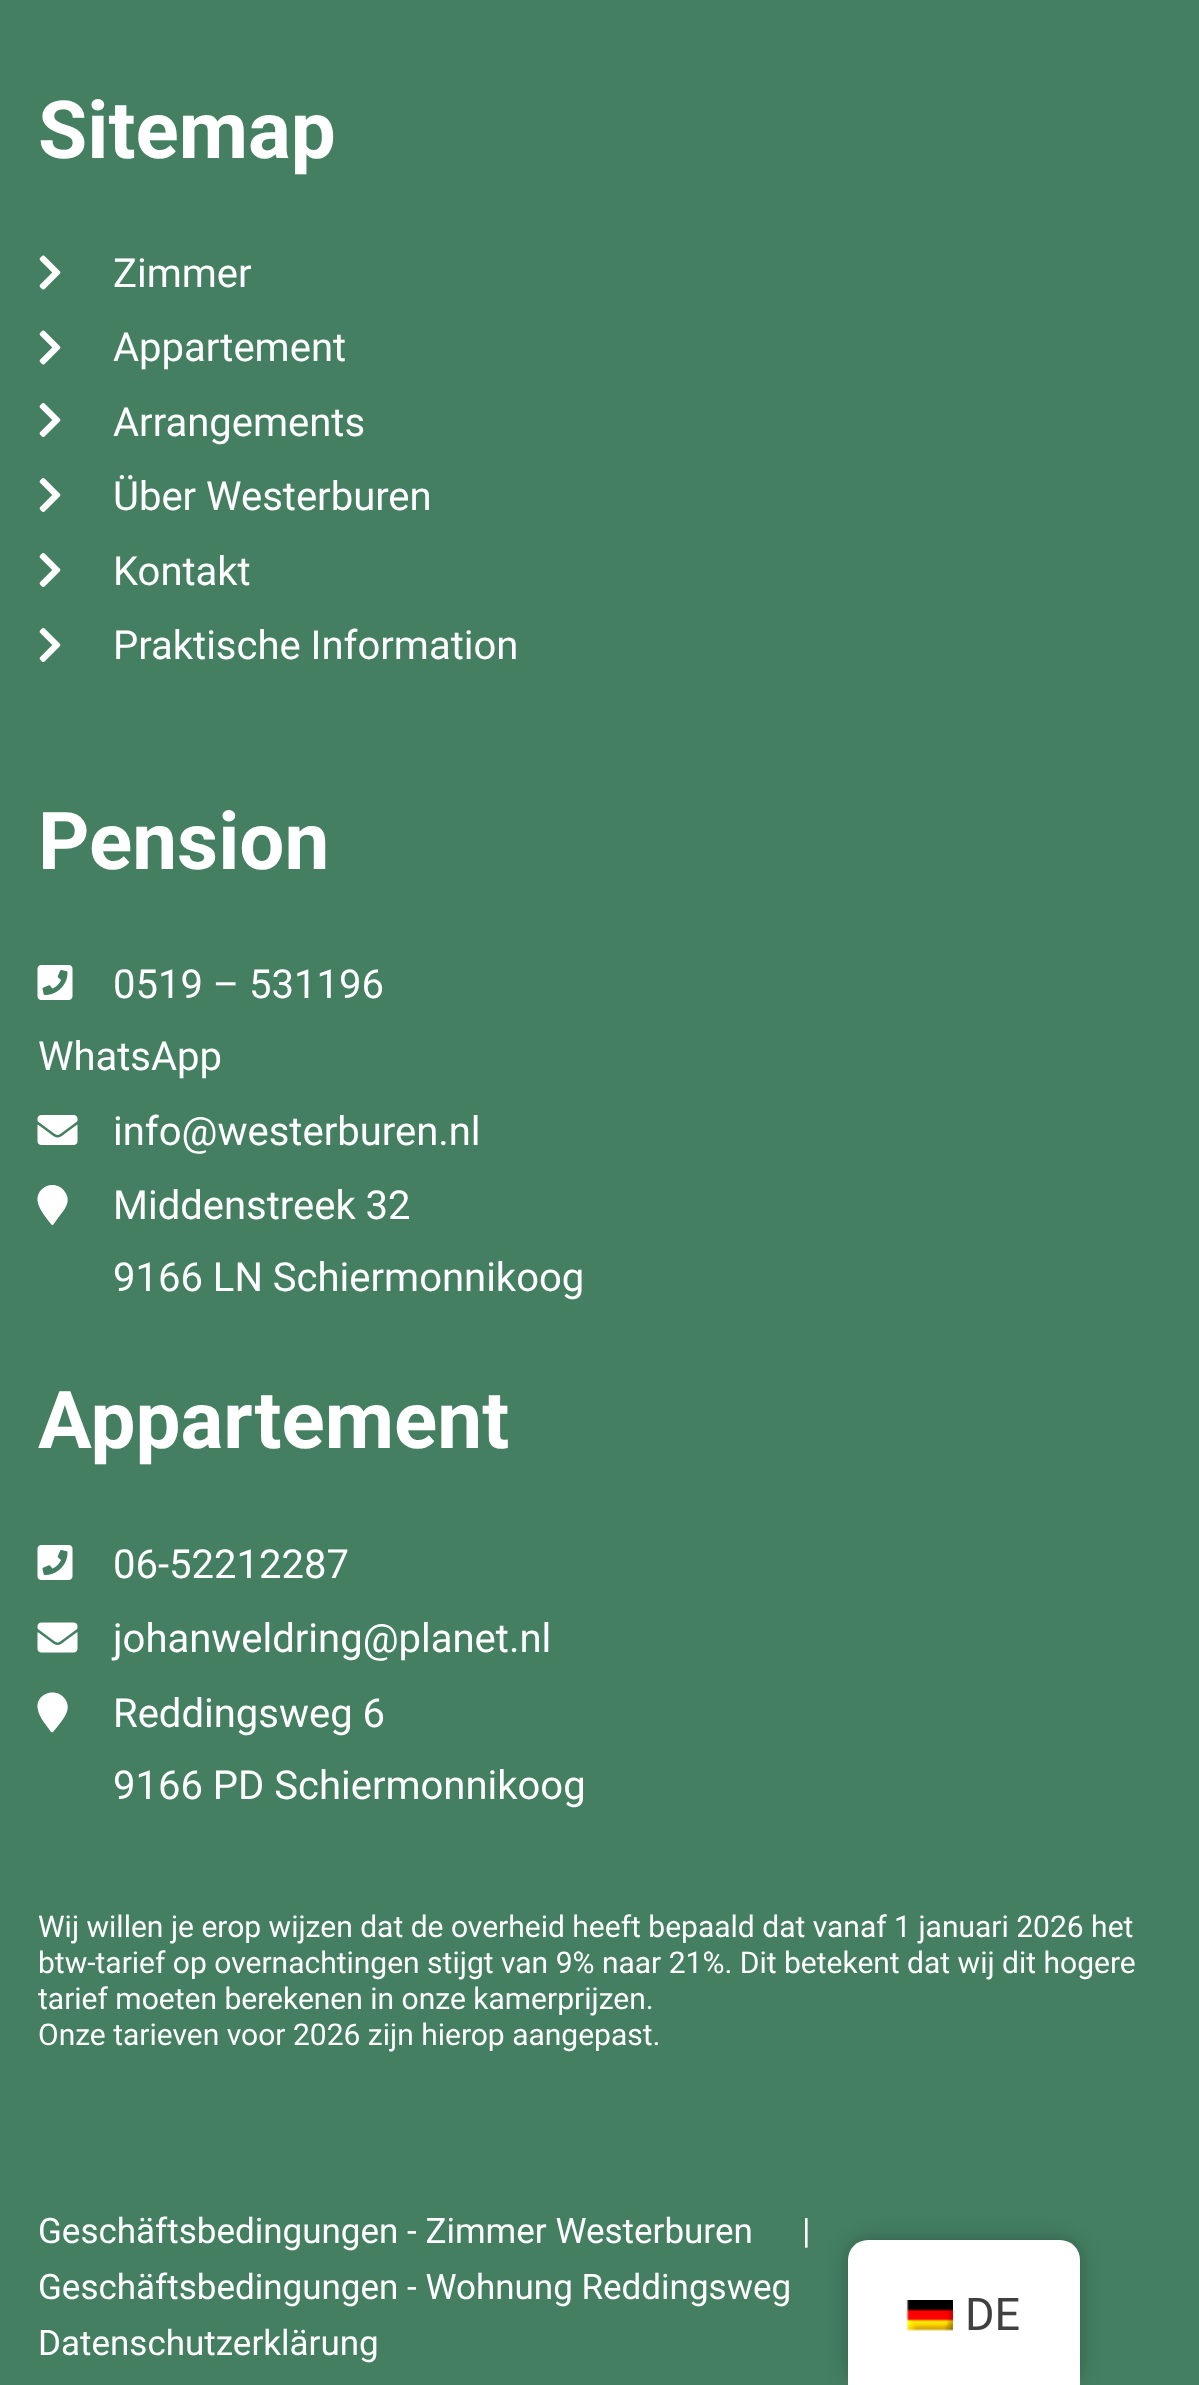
(async () => {
  const canvas = document.querySelector("canvas");
  canvas.width = 1199;
  canvas.height = 2385;
  const ctx = canvas.getContext("2d");
  ctx.miterLimit = 4;
  ctx.fontKerning = "normal";
  async function loadImage(src) {
    const img = new Image();
    img.src = src;
    await img.decode();
    return img;
  }
  let path;

  ctx.fillStyle = "#447f61";
  ctx.fillRect(0, 0, 1199, 2385);
  ctx.drawImage(await loadImage("img/1.png"), 39, 255, 22, 35);
  ctx.drawImage(await loadImage("img/1.png"), 39, 330, 22, 35);
  ctx.drawImage(await loadImage("img/2.png"), 39, 403, 22, 34);
  ctx.drawImage(await loadImage("img/2.png"), 39, 478, 22, 34);
  ctx.drawImage(await loadImage("img/2.png"), 39, 553, 22, 34);
  ctx.drawImage(await loadImage("img/2.png"), 39, 628, 22, 34);
  ctx.drawImage(await loadImage("img/3.png"), 37, 965, 36, 35);
  ctx.drawImage(await loadImage("img/4.png"), 37, 1115, 41, 30);
  ctx.fillStyle = "#ffffff";
  path = new Path2D("M51 1224C47 1219 39 1209 38 1203C34 1187 56 1178 65 1192C72 1202 64 1210 58 1218L53 1225C53 1225 51 1225 51 1224Z");
  ctx.fill(path);
  ctx.drawImage(await loadImage("img/3.png"), 37, 1545, 36, 35);
  ctx.drawImage(await loadImage("img/5.png"), 37, 1622, 41, 31);
  path = new Path2D("M51 1732C47 1726 39 1717 38 1710C34 1694 56 1686 65 1699C72 1709 64 1718 58 1726L53 1732C53 1733 51 1732 51 1732Z");
  ctx.fill(path);
  ctx.fillStyle = "rgba(0, 0, 0, 0.25)";
  ctx.filter = "blur(10px)";
  ctx.beginPath();
  ctx.roundRect(848, 2240, 232, 145, 20);
  ctx.fill();
  ctx.filter = "none";
  ctx.fillStyle = "#ffffff";
  ctx.beginPath();
  ctx.roundRect(848, 2240, 232, 145, [20, 20, 0, 0]);
  ctx.fill();
  ctx.drawImage(await loadImage("img/6.png"), 906, 2300, 47, 31);
  ctx.font = "bold 80px Roboto";
  ctx.fillText("Sitemap", 38, 158);
  ctx.font = "40px Roboto";
  for (const [text, x, y] of [
    ["Zimmer", 113, 287],
    ["Appartement", 113, 361],
    ["Arrangements", 113, 436],
    ["Über Westerburen", 113, 510],
    ["Kontakt", 113, 585],
    ["Praktische Information", 113, 659],
  ]) {
    ctx.fillText(text, x, y);
  }
  ctx.font = "bold 80px Roboto";
  ctx.fillText("Pension", 38, 869);
  ctx.font = "40px Roboto";
  for (const [text, x, y] of [
    ["0519 – 531196", 113, 998],
    ["WhatsApp", 38, 1070],
    ["info@westerburen.nl", 113, 1145],
    ["Middenstreek 32", 113, 1219],
    ["9166 LN Schiermonnikoog", 113, 1291],
  ]) {
    ctx.fillText(text, x, y);
  }
  ctx.font = "bold 80px Roboto";
  ctx.fillText("Appartement", 38, 1448);
  ctx.font = "40px Roboto";
  for (const [text, x, y] of [
    ["06-52212287", 113, 1578],
    ["johanweldring@planet.nl", 113, 1652],
    ["Reddingsweg 6", 113, 1727],
    ["9166 PD Schiermonnikoog", 113, 1799],
  ]) {
    ctx.fillText(text, x, y);
  }
  ctx.font = "30px Roboto";
  for (const [text, x, y] of [
    ["Wij willen je erop wijzen dat de overheid heeft bepaald dat vanaf 1 januari 2026 het", 38, 1937],
    ["btw-tarief op overnachtingen stijgt van 9% naar 21%. Dit betekent dat wij dit hogere", 38, 1973],
    ["tarief moeten berekenen in onze kamerprijzen.", 38, 2009],
    ["Onze tarieven voor 2026 zijn hierop aangepast.", 38, 2045],
  ]) {
    ctx.fillText(text, x, y);
  }
  ctx.font = "35px Roboto";
  for (const [text, x, y] of [
    ["Geschäftsbedingungen - Zimmer Westerburen", 38, 2243],
    ["|", 802, 2243],
    ["Geschäftsbedingungen - Wohnung Reddingsweg", 38, 2299],
    ["Datenschutzerklärung", 38, 2355],
  ]) {
    ctx.fillText(text, x, y);
  }
  ctx.font = "45px Roboto";
  ctx.fillStyle = "#404040";
  ctx.fillText("DE", 965, 2330);
})();
